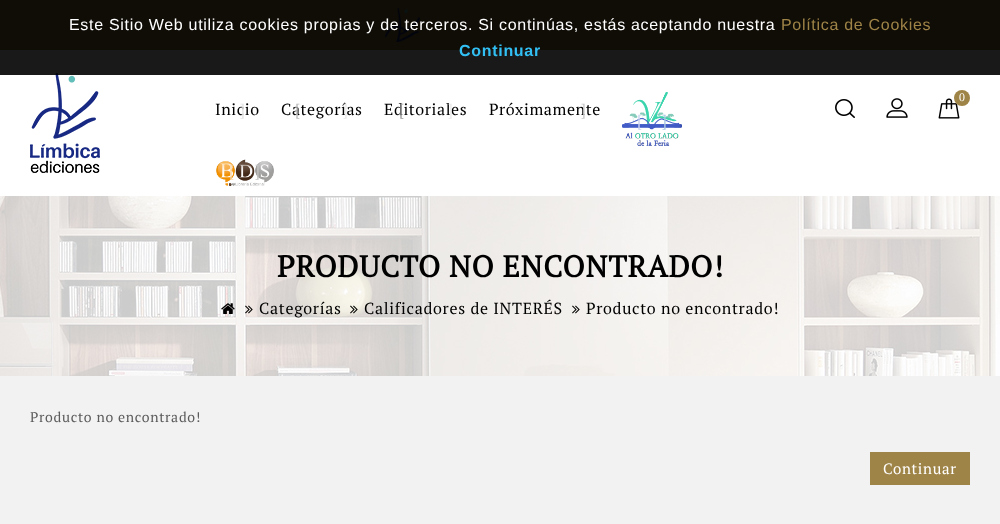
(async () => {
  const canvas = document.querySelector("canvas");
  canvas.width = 1000;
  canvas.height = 524;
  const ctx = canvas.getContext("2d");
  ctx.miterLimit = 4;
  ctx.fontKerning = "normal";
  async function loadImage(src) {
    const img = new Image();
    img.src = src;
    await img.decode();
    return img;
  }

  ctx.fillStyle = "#f2f2f2";
  ctx.fillRect(0, 0, 1000, 524);
  ctx.fillStyle = "#9f8447";
  ctx.fillRect(0, 0, 1000, 50);
  ctx.drawImage(await loadImage("img/1.png"), 385, 8, 35, 34);
  ctx.fillStyle = "#ffffff";
  ctx.fillRect(0, 50, 1000, 146);
  ctx.drawImage(await loadImage("img/2.png"), 30, 73, 70, 100);
  ctx.fillStyle = "rgba(0, 0, 0, 0.9)";
  ctx.fillRect(0, 0, 1000, 75);
  ctx.drawImage(await loadImage("img/3.png"), 835, 99, 20, 19);
  ctx.drawImage(await loadImage("img/4.png"), 886, 98, 22, 20);
  ctx.drawImage(await loadImage("img/5.png"), 938, 98, 22, 21);
  ctx.fillStyle = "#9f8447";
  ctx.beginPath();
  ctx.arc(962, 98, 8, 0, Math.PI * 2);
  ctx.fill();
  ctx.drawImage(await loadImage("img/6.png"), 622, 92, 60, 54);
  ctx.drawImage(await loadImage("img/7.png"), 216, 159, 58, 28);
  ctx.drawImage(await loadImage("img/8.png"), 0, 196, 1000, 180);
  ctx.drawImage(await loadImage("img/9.png"), 221, 303, 14, 11);
  ctx.drawImage(await loadImage("img/10.png"), 245, 305, 8, 9);
  ctx.drawImage(await loadImage("img/11.png"), 350, 305, 8, 9);
  ctx.drawImage(await loadImage("img/12.png"), 572, 305, 8, 9);
  ctx.fillRect(870, 452, 100, 33);
  ctx.letterSpacing = "0.7px";
  ctx.font = "16px Liberation Sans";
  ctx.fillStyle = "#ffffff";
  ctx.fillText("Este Sitio Web utiliza cookies propias y de terceros. Si continúas, estás aceptando nuestra", 69, 30);
  ctx.fillStyle = "#9f8447";
  ctx.fillText("Política de Cookies", 781, 30);
  ctx.font = "bold 16px Liberation Sans";
  ctx.fillStyle = "#32c0f4";
  ctx.fillText("Continuar", 459, 56);
  ctx.letterSpacing = "1px";
  ctx.font = "11px PT Serif";
  ctx.fillStyle = "#ffffff";
  ctx.fillText("0", 959, 101);
  ctx.letterSpacing = "0.6px";
  ctx.font = "16px PT Serif";
  ctx.fillStyle = "#000000";
  ctx.fillText("Inicio", 215, 115);
  ctx.fillStyle = "#e3e3e3";
  ctx.fillText("]", 240, 115);
  ctx.fillStyle = "#000000";
  ctx.fillText("Categorías", 281, 115);
  ctx.fillStyle = "#bbbbbb";
  ctx.fillText("[", 295, 115);
  ctx.fillStyle = "#e9e9e9";
  ctx.fillText("]", 343, 115);
  ctx.fillStyle = "#000000";
  ctx.fillText("Editoriales", 384, 115);
  ctx.fillStyle = "#9c9c9c";
  ctx.fillText("[", 399, 115);
  ctx.fillStyle = "#e9e9e9";
  ctx.fillText("]", 448, 115);
  ctx.fillStyle = "#000000";
  ctx.fillText("Próximamente", 489, 115);
  ctx.fillStyle = "#c9c9c9";
  ctx.fillText("]", 581, 115);
  ctx.fillStyle = "#cbd4ef";
  ctx.fillText("[", 637, 126);
  ctx.fillStyle = "#abc8e2";
  ctx.fillText("]", 662, 126);
  ctx.fillStyle = "#f9d7a6";
  ctx.fillText("[", 229, 176);
  ctx.fillStyle = "#c3c3c2";
  ctx.fillText("]", 255, 176);
  ctx.letterSpacing = "0.7px";
  ctx.font = "bold 30px PT Serif";
  ctx.fillStyle = "#000000";
  ctx.fillText("PRODUCTO NO ENCONTRADO!", 277, 277);
  ctx.font = "16px PT Serif";
  for (const [text, x, y] of [
    ["Categorías", 259, 314],
    ["Calificadores de INTERÉS", 364, 314],
    ["Producto no encontrado!", 586, 314],
  ]) {
    ctx.fillText(text, x, y);
  }
  ctx.font = "14px PT Serif";
  ctx.fillStyle = "#5c5c5c";
  ctx.fillText("Producto no encontrado!", 30, 422);
  ctx.font = "15px PT Serif";
  ctx.fillStyle = "#ffffff";
  ctx.fillText("Continuar", 883, 474);
})();
